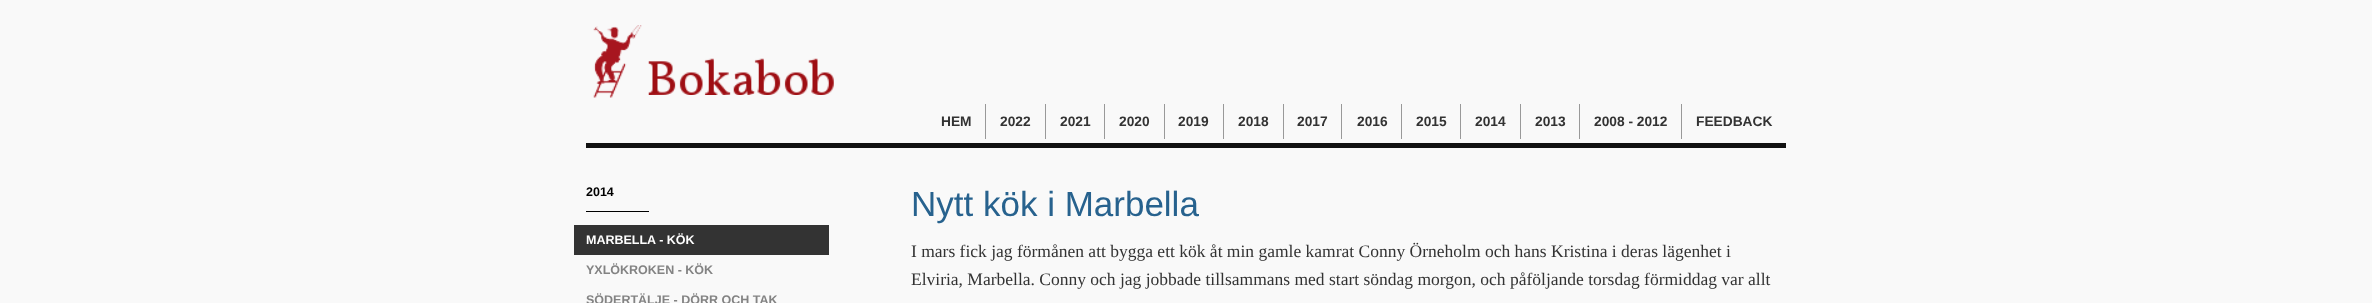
(async () => {
  const canvas = document.querySelector("canvas");
  canvas.width = 2372;
  canvas.height = 303;
  const ctx = canvas.getContext("2d");
  ctx.miterLimit = 4;
  ctx.fontKerning = "normal";
  async function loadImage(src) {
    const img = new Image();
    img.src = src;
    await img.decode();
    return img;
  }

  ctx.fillStyle = "#f9f9f9";
  ctx.fillRect(0, 0, 2372, 303);
  ctx.drawImage(await loadImage("img/1.png"), 593, 25, 49, 73);
  ctx.drawImage(await loadImage("img/2.png"), 648, 58, 186, 37);
  for (const [x, y, w, h, color] of [
    [985, 104, 1, 35, "#999999"],
    [1045, 104, 1, 35, "#999999"],
    [1104, 104, 1, 35, "#999999"],
    [1164, 104, 1, 35, "#999999"],
    [1223, 104, 1, 35, "#999999"],
    [1283, 104, 1, 35, "#999999"],
    [1341, 104, 1, 35, "#999999"],
    [1401, 104, 1, 35, "#999999"],
    [1460, 104, 1, 35, "#999999"],
    [1520, 104, 1, 35, "#999999"],
    [1579, 104, 1, 35, "#999999"],
    [1681, 104, 1, 35, "#999999"],
    [586, 143, 1200, 5, "#121212"],
    [586, 211, 63, 1, "#000000"],
    [574, 225, 255, 30, "#333333"],
  ]) {
    ctx.fillStyle = color;
    ctx.fillRect(x, y, w, h);
  }
  ctx.font = "bold 13.75px Liberation Sans";
  for (const [text, x, y] of [
    ["HEM", 941, 126],
    ["2022", 1000, 126],
    ["2021", 1060, 126],
    ["2020", 1119, 126],
    ["2019", 1178, 126],
    ["2018", 1238, 126],
    ["2017", 1297, 126],
    ["2016", 1357, 126],
    ["2015", 1416, 126],
    ["2014", 1475, 126],
    ["2013", 1535, 126],
    ["2008 - 2012", 1594, 126],
    ["FEEDBACK", 1696, 126],
  ]) {
    ctx.fillText(text, x, y);
  }
  ctx.font = "bold 12.5px Liberation Sans";
  ctx.fillStyle = "#000000";
  ctx.fillText("2014", 586, 196);
  ctx.fillStyle = "#ffffff";
  ctx.fillText("MARBELLA - KÖK", 586, 244);
  ctx.fillStyle = "#838383";
  ctx.fillText("YXLÖKROKEN - KÖK", 586, 274);
  ctx.fillText("SÖDERTÄLJE - DÖRR OCH TAK", 586, 304);
  ctx.font = "35px Liberation Sans";
  ctx.fillStyle = "#27628e";
  ctx.fillText("Nytt kök i Marbella", 911, 216);
  ctx.font = "17.5px Liberation Serif";
  ctx.fillStyle = "#333333";
  ctx.fillText("I mars fick jag förmånen att bygga ett kök åt min gamle kamrat Conny Örneholm och hans Kristina i deras lägenhet i", 911, 257);
  ctx.fillText("Elviria, Marbella. Conny och jag jobbade tillsammans med start söndag morgon, och påföljande torsdag förmiddag var allt", 911, 285);
})();
